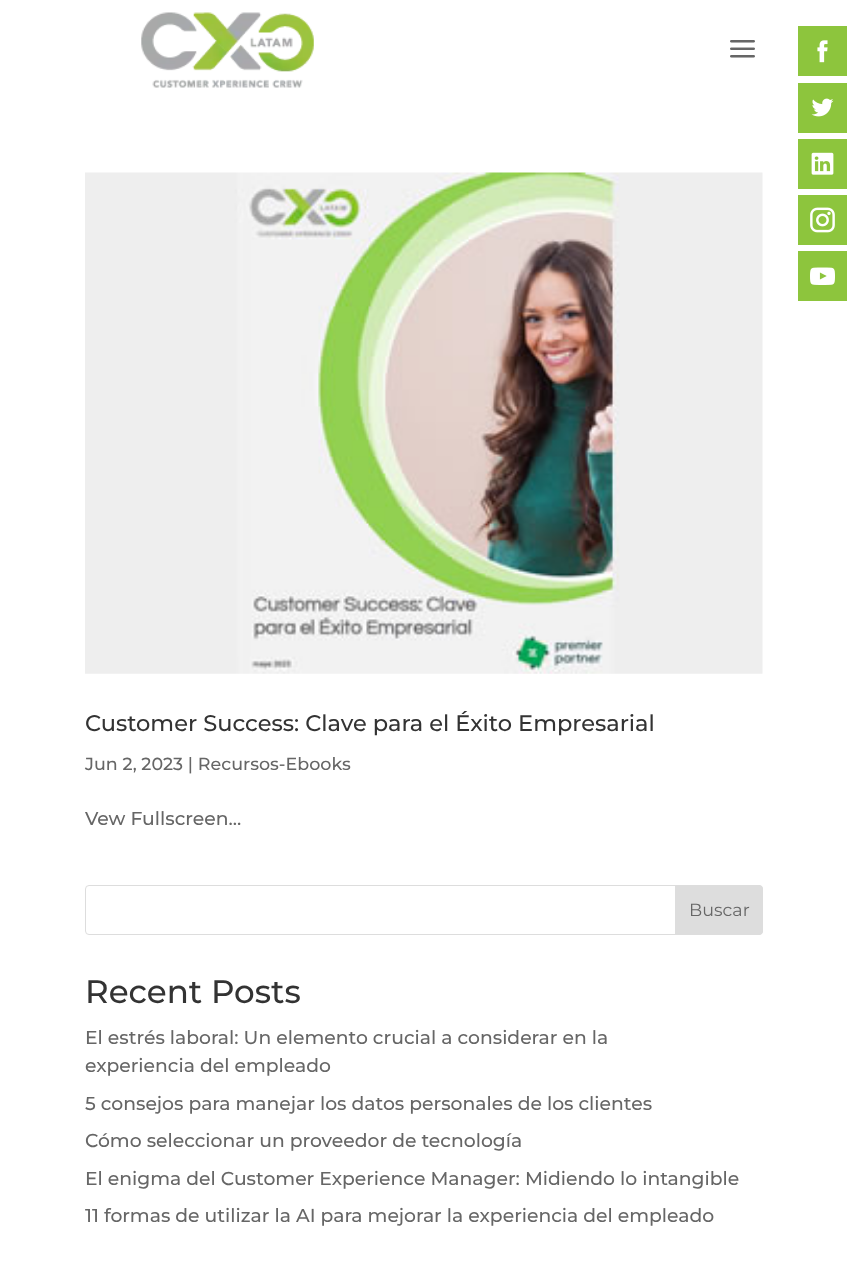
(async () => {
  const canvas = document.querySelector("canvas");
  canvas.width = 847;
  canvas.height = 1261;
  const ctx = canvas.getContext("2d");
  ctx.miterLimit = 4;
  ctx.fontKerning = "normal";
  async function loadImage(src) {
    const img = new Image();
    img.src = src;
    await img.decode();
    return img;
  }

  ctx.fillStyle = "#ffffff";
  ctx.fillRect(0, 0, 847, 1261);
  ctx.fillStyle = "#8dc53d";
  ctx.fillRect(798, 26, 49, 50);
  ctx.drawImage(await loadImage("img/1.png"), 817, 40, 11, 23);
  ctx.fillRect(798, 83, 49, 50);
  ctx.drawImage(await loadImage("img/2.png"), 811, 98, 23, 19);
  ctx.fillRect(798, 139, 49, 50);
  ctx.drawImage(await loadImage("img/3.png"), 811, 152, 23, 23);
  ctx.fillRect(798, 195, 49, 50);
  ctx.drawImage(await loadImage("img/4.png"), 810, 207, 25, 26);
  ctx.fillRect(798, 251, 49, 50);
  ctx.drawImage(await loadImage("img/5.png"), 810, 267, 25, 18);
  ctx.drawImage(await loadImage("img/6.png"), 141, 12, 173, 76);
  ctx.drawImage(await loadImage("img/7.png"), 730, 40, 25, 18);
  ctx.drawImage(await loadImage("img/8.png"), 85, 172, 678, 502);
  ctx.beginPath();
  ctx.roundRect(85.5, 885.5, 677, 49, 3.5);
  ctx.strokeStyle = "#dddddd";
  ctx.stroke();
  ctx.fillStyle = "#dddddd";
  ctx.beginPath();
  ctx.roundRect(675.5, 885.5, 87, 49, [0, 3.5, 3.5, 0]);
  ctx.fill();
  ctx.stroke();
  ctx.font = "500 22.5px Montserrat";
  ctx.fillStyle = "#333333";
  ctx.fillText("Customer Success: Clave para el Éxito Empresarial", 85, 731);
  ctx.font = "500 17.5px Montserrat";
  ctx.fillStyle = "#666666";
  ctx.fillText("Jun 2, 2023 | Recursos-Ebooks", 85, 770);
  ctx.font = "500 18.75px Montserrat";
  ctx.fillText("Vew Fullscreen...", 85, 825);
  ctx.font = "17.5px Montserrat";
  ctx.fillText("Buscar", 689, 916);
  ctx.font = "500 32.5px Montserrat";
  ctx.fillStyle = "#333333";
  ctx.fillText("Recent Posts", 85, 1003);
  ctx.font = "500 18.75px Montserrat";
  ctx.fillStyle = "#666666";
  for (const [text, x, y] of [
    ["El estrés laboral: Un elemento crucial a considerar en la", 85, 1044],
    ["experiencia del empleado", 85, 1072],
    ["5 consejos para manejar los datos personales de los clientes", 85, 1110],
    ["Cómo seleccionar un proveedor de tecnología", 85, 1147],
    ["El enigma del Customer Experience Manager: Midiendo lo intangible", 85, 1185],
    ["11 formas de utilizar la AI para mejorar la experiencia del empleado", 85, 1222],
  ]) {
    ctx.fillText(text, x, y);
  }
})();
